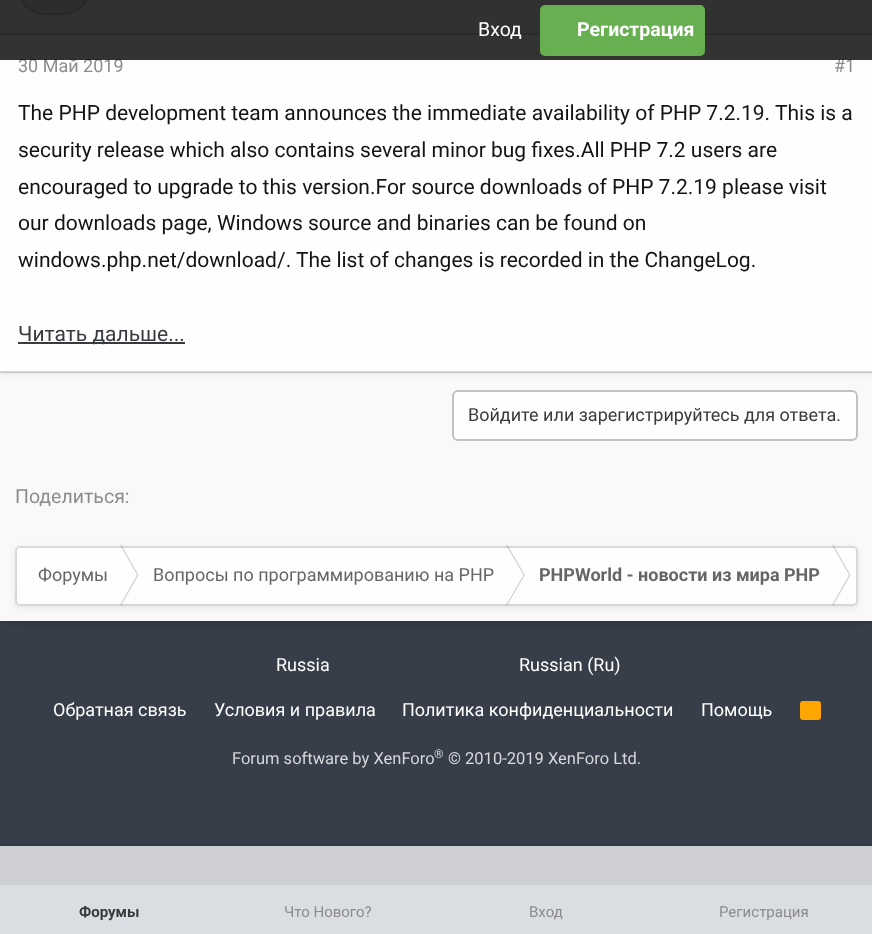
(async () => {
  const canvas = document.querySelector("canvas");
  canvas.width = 872;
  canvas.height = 934;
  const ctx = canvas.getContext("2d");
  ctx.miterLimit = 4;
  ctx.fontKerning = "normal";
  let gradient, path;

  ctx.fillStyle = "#dadde1";
  ctx.fillRect(0, 0, 872, 934);
  ctx.fillStyle = "#373e49";
  ctx.fillRect(0, 621, 872, 224);
  ctx.fillStyle = "#cfd0d3";
  ctx.fillRect(0, 846, 872, 39);
  ctx.fillStyle = "rgba(0, 0, 0, 0.08)";
  ctx.filter = "blur(2px)";
  ctx.beginPath();
  ctx.rect(0, -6, 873, 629);
  ctx.fill();
  ctx.filter = "none";
  ctx.fillStyle = "rgba(0, 0, 0, 0.06)";
  ctx.filter = "blur(15px)";
  ctx.beginPath();
  ctx.rect(0, -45, 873, 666);
  ctx.fill();
  ctx.filter = "none";
  ctx.fillStyle = "#f9f9f9";
  ctx.fillRect(0, 372, 872, 249);
  ctx.fillStyle = "rgba(0, 0, 0, 0.08)";
  ctx.filter = "blur(3px)";
  ctx.beginPath();
  ctx.rect(0, -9, 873, 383);
  ctx.fill();
  ctx.filter = "none";
  for (const [x, y, w, h, color] of [
    [0, 35, 872, 337, "#fefefe"],
    [0, 371, 872, 2, "rgba(0, 0, 0, 0.15)"],
    [0, 0, 872, 33, "#f5f5f5"],
    [0, 33, 872, 2, "#d8d8d8"],
  ]) {
    ctx.fillStyle = color;
    ctx.fillRect(x, y, w, h);
  }
  ctx.fillStyle = "#e2e2e2";
  ctx.beginPath();
  ctx.roundRect(18, -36, 72, 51, 36);
  ctx.fill();
  ctx.beginPath();
  ctx.roundRect(19, -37, 70, 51, 35);
  ctx.strokeStyle = "rgba(20, 20, 20, 0.15)";
  ctx.lineWidth = 2;
  ctx.stroke();
  ctx.fillStyle = "#383b3d";
  ctx.fillRect(18, 342, 167, 2);
  ctx.fillStyle = "#fefefe";
  ctx.beginPath();
  ctx.roundRect(453, 391, 404, 49, 5);
  ctx.fill();
  ctx.strokeStyle = "#c1c1c1";
  ctx.stroke();
  ctx.fillStyle = "rgba(0, 0, 0, 0.08)";
  ctx.filter = "blur(3px)";
  ctx.beginPath();
  ctx.roundRect(15, 548, 843, 60, 5);
  ctx.fill();
  ctx.filter = "none";
  ctx.fillStyle = "#fdfdfd";
  ctx.beginPath();
  ctx.roundRect(15, 546, 843, 60, 5);
  ctx.fill();
  gradient = ctx.createLinearGradient(437, 546, 437, 606);
  gradient.addColorStop(0, "#ffffff");
  gradient.addColorStop(1, "rgba(255, 255, 255, 0)");
  ctx.fillStyle = gradient;
  ctx.beginPath();
  ctx.roundRect(15, 546, 843, 60, 5);
  ctx.fill();
  ctx.fillStyle = "#d5d5d5";
  path = new Path2D("M120 545H121.5L138.5 575H137Z");
  ctx.fill(path);
  ctx.fillStyle = "#d4d4d4";
  path = new Path2D("M137 575H138.5L121.5 605H120Z");
  ctx.fill(path);
  ctx.fillStyle = "#d5d5d5";
  path = new Path2D("M506 545H507.5L525 575H523.5Z");
  ctx.fill(path);
  ctx.fillStyle = "#d4d4d4";
  path = new Path2D("M523.5 575H525L507.5 605H506Z");
  ctx.fill(path);
  ctx.fillStyle = "#d5d5d5";
  path = new Path2D("M832 545H833.5L850.5 575H849Z");
  ctx.fill(path);
  ctx.fillStyle = "#d4d4d4";
  path = new Path2D("M849 575H850.5L833.5 605H832Z");
  ctx.fill(path);
  ctx.beginPath();
  ctx.roundRect(16, 547, 841, 58, 4);
  ctx.strokeStyle = "rgba(0, 0, 0, 0.15)";
  ctx.stroke();
  ctx.fillStyle = "#ffa500";
  ctx.beginPath();
  ctx.roundRect(800, 701, 21, 19, 3);
  ctx.fill();
  ctx.fillStyle = "#323841";
  ctx.fillRect(0, 845, 872, 1);
  ctx.font = "18px Roboto";
  ctx.fillStyle = "#8c8c8c";
  ctx.fillText("30 Май 2019", 18, 72);
  ctx.fillText("#1", 834, 72);
  ctx.fillStyle = "rgba(0, 0, 0, 0.8)";
  ctx.fillRect(0, 0, 872, 60);
  ctx.fillStyle = "#67af51";
  ctx.beginPath();
  ctx.roundRect(540, 5, 165, 51, 5);
  ctx.fill();
  ctx.font = "bold 19.5px Roboto";
  ctx.fillStyle = "#ffffff";
  ctx.fillText("Регистрация", 577, 36);
  ctx.font = "19.5px Roboto";
  ctx.fillText("Вход", 478, 36);
  ctx.font = "21px Roboto";
  ctx.fillStyle = "#141414";
  for (const [text, x, y] of [
    ["The PHP development team announces the immediate availability of PHP 7.2.19. This is a", 18, 120],
    ["security release which also contains several minor bug fixes.All PHP 7.2 users are", 18, 157],
    ["encouraged to upgrade to this version.For source downloads of PHP 7.2.19 please visit", 18, 194],
    ["our downloads page, Windows source and binaries can be found on", 18, 230],
    ["windows.php.net/download/. The list of changes is recorded in the ChangeLog.", 18, 267],
  ]) {
    ctx.fillText(text, x, y);
  }
  ctx.fillStyle = "#383b3d";
  ctx.fillText("Читать дальше...", 18, 341);
  ctx.font = "18px Roboto";
  ctx.fillText("Войдите или зарегистрируйтесь для ответа.", 468, 421);
  ctx.font = "19.5px Roboto";
  ctx.fillStyle = "#8c8c8c";
  ctx.fillText("Поделиться:", 15, 503);
  ctx.font = "18px Roboto";
  ctx.fillStyle = "#666666";
  ctx.fillText("Форумы", 38, 581);
  ctx.fillText("Вопросы по программированию на РНР", 153, 581);
  ctx.font = "bold 18px Roboto";
  ctx.fillText("PHPWorld - новости из мира PHP", 539, 581);
  ctx.font = "18px Roboto";
  ctx.fillStyle = "#ffffff";
  for (const [text, x, y] of [
    ["Russia", 276, 671],
    ["Russian (Ru)", 519, 671],
    ["Обратная связь", 53, 716],
    ["Условия и правила", 214, 716],
    ["Политика конфиденциальности", 402, 716],
    ["Помощь", 701, 716],
  ]) {
    ctx.fillText(text, x, y);
  }
  ctx.font = "16.5px Roboto";
  ctx.fillStyle = "#d7d8db";
  ctx.fillText("Forum software by XenForo", 232, 764);
  ctx.font = "12px Roboto";
  ctx.fillText("®", 434, 758);
  ctx.font = "16.5px Roboto";
  ctx.fillText("© 2010-2019 XenForo Ltd.", 448, 764);
  ctx.font = "bold 15px Roboto";
  ctx.fillStyle = "#383b3d";
  ctx.fillText("Форумы", 79, 917);
  ctx.font = "15px Roboto";
  ctx.fillStyle = "#8c8c8c";
  for (const [text, x, y] of [
    ["Что Нового?", 284, 917],
    ["Вход", 529, 917],
    ["Регистрация", 719, 917],
  ]) {
    ctx.fillText(text, x, y);
  }
})();
